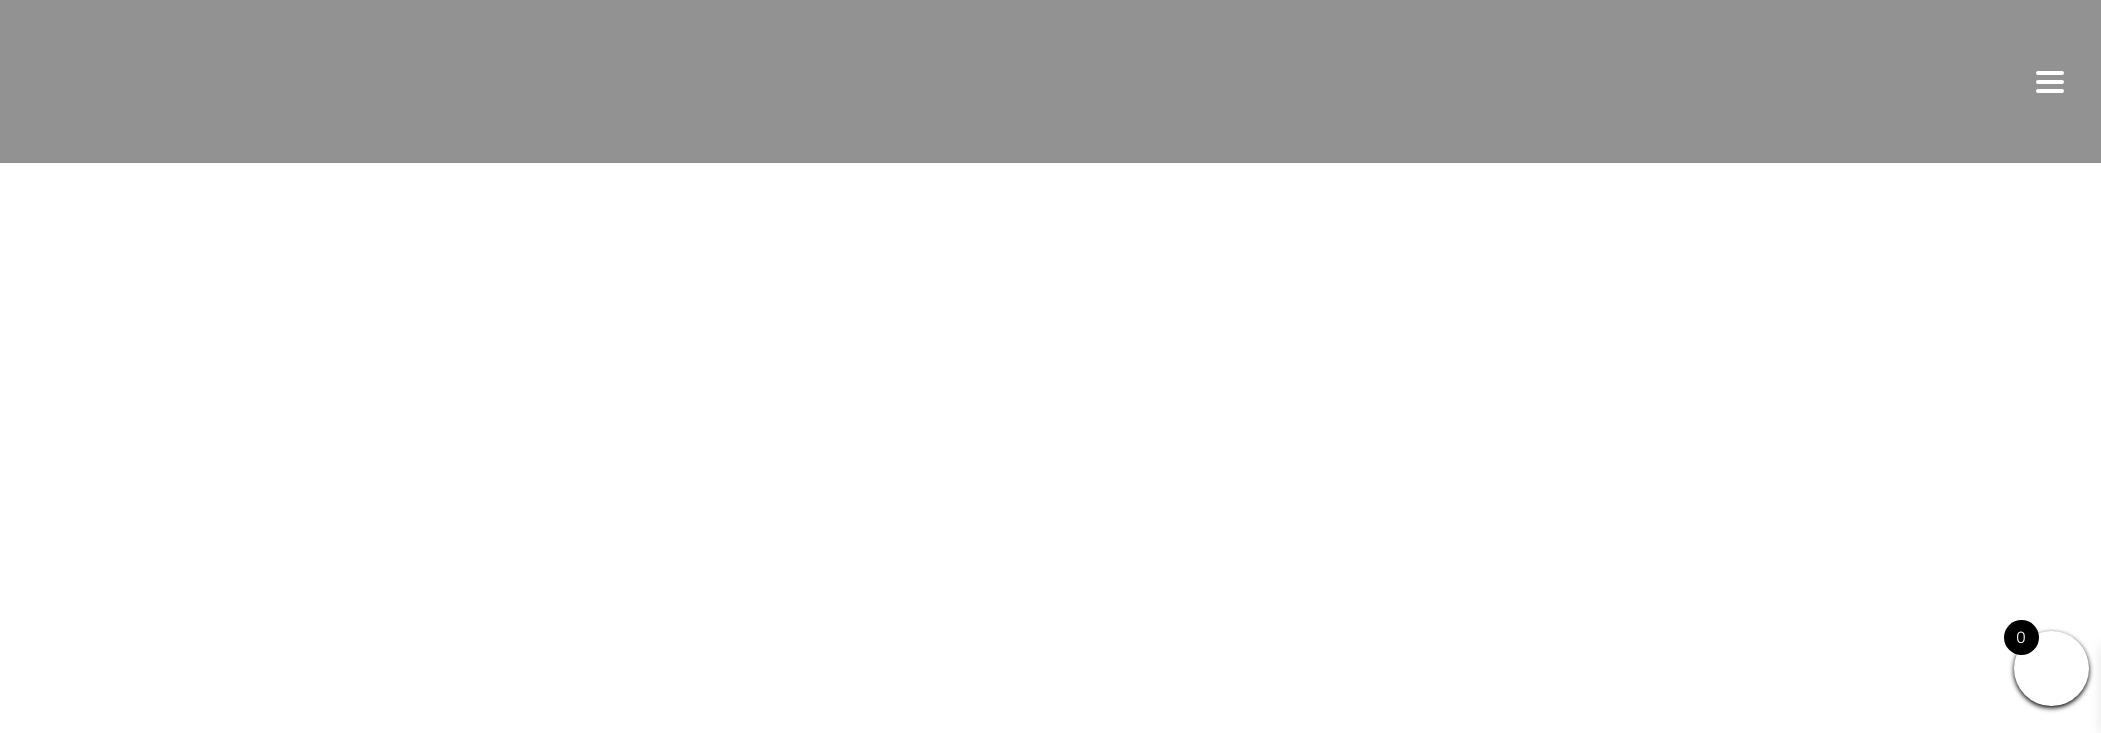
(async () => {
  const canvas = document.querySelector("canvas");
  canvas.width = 2101;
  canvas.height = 733;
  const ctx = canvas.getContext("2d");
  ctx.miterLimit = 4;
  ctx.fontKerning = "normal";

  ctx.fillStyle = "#ffffff";
  ctx.fillRect(0, 0, 2101, 733);
  ctx.fillStyle = "#929292";
  ctx.fillRect(0, 0, 2101, 163);
  ctx.fillStyle = "#ffffff";
  ctx.beginPath();
  ctx.roundRect(2036, 80, 28, 4, 2);
  ctx.fill();
  ctx.beginPath();
  ctx.roundRect(2036, 71, 28, 4, 2);
  ctx.fill();
  ctx.beginPath();
  ctx.roundRect(2036, 89, 28, 4, 2);
  ctx.fill();
  ctx.fillStyle = "#000000";
  ctx.filter = "blur(2.5px)";
  ctx.beginPath();
  ctx.roundRect(2014, 633, 75, 75, 37.5);
  ctx.fill();
  ctx.filter = "none";
  ctx.fillStyle = "rgba(0, 0, 0, 0.1)";
  ctx.filter = "blur(6px)";
  ctx.beginPath();
  ctx.rect(2101, 646, 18, 87);
  ctx.fill();
  ctx.filter = "none";
  ctx.fillStyle = "#ffffff";
  ctx.beginPath();
  ctx.arc(2051.5, 668.5, 37.5, 0, Math.PI * 2);
  ctx.fill();
  ctx.fillStyle = "#000000";
  ctx.beginPath();
  ctx.arc(2021.5, 637.5, 17.5, 0, Math.PI * 2);
  ctx.fill();
  ctx.font = "300 16px Poppins";
  ctx.fillStyle = "#ffffff";
  ctx.fillText("0", 2016, 643);
})();
